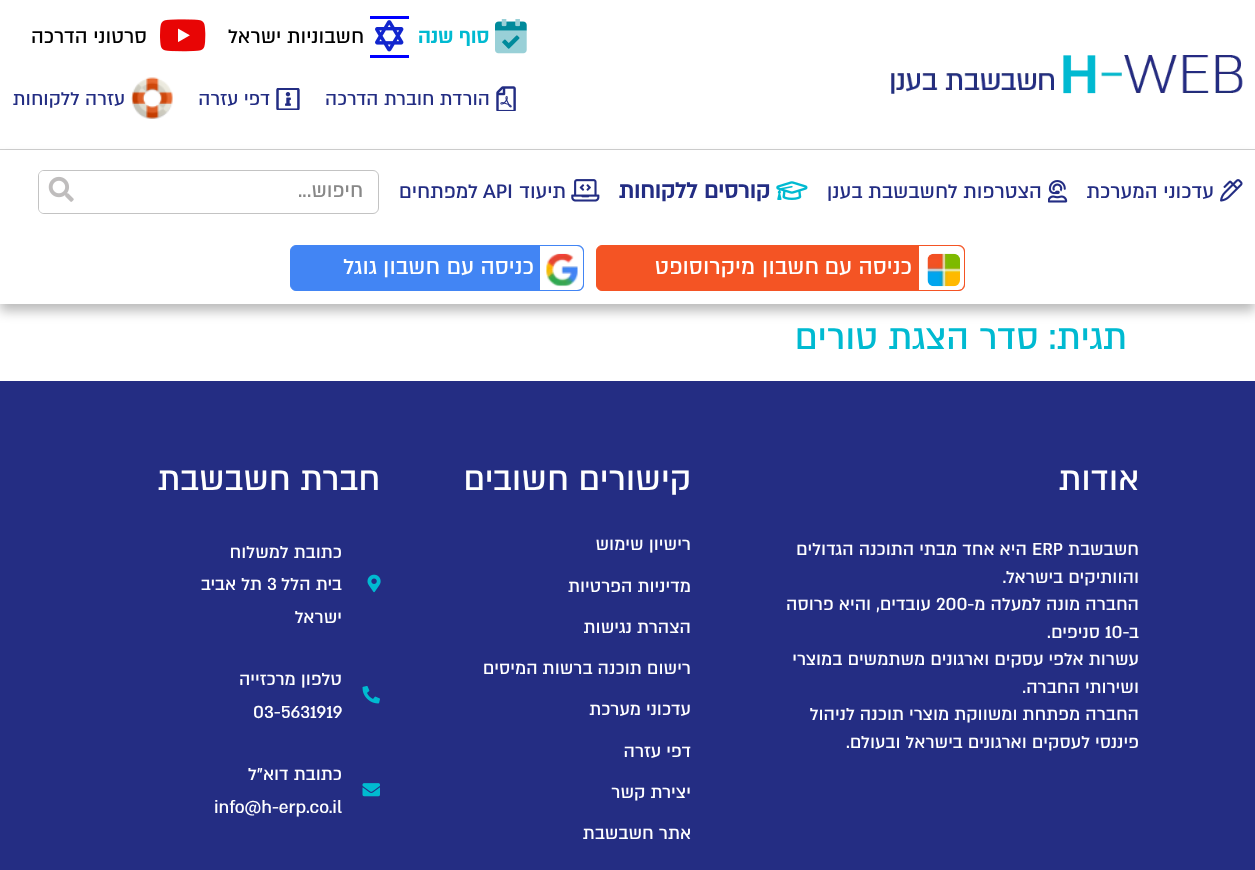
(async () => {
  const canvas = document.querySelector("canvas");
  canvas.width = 1255;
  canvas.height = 870;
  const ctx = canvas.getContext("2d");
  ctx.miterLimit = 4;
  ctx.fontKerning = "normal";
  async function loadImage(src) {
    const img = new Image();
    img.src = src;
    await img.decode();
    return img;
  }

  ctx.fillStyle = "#ffffff";
  ctx.fillRect(0, 0, 1255, 870);
  ctx.fillStyle = "#cfcfcf";
  ctx.fillRect(0, 149, 1255, 1);
  ctx.drawImage(await loadImage("img/1.png"), 891, 55, 352, 39);
  ctx.drawImage(await loadImage("img/3.png"), 495, 21, 32, 28);
  ctx.drawImage(await loadImage("img/2.png"), 495, 19, 32, 35);
  ctx.fillStyle = "#0000ff";
  ctx.fillRect(370, 16, 39, 3);
  ctx.fillRect(370, 55, 39, 3);
  ctx.drawImage(await loadImage("img/4.png"), 375, 20, 29, 32);
  ctx.drawImage(await loadImage("img/5.png"), 160, 19, 46, 33);
  ctx.drawImage(await loadImage("img/6.png"), 496, 86, 20, 25);
  ctx.drawImage(await loadImage("img/7.png"), 276, 88, 24, 22);
  ctx.drawImage(await loadImage("img/8.png"), 131, 77, 42, 42);
  ctx.fillStyle = "rgba(0, 0, 0, 0.27)";
  ctx.filter = "blur(6px)";
  ctx.beginPath();
  ctx.rect(0, 158, 1255, 153);
  ctx.fill();
  ctx.filter = "none";
  ctx.fillStyle = "#ffffff";
  ctx.fillRect(0, 150, 1255, 154);
  ctx.drawImage(await loadImage("img/9.png"), 1220, 179, 23, 23);
  ctx.drawImage(await loadImage("img/10.png"), 1048, 180, 20, 23);
  ctx.drawImage(await loadImage("img/11.png"), 776, 181, 32, 19);
  ctx.drawImage(await loadImage("img/12.png"), 571, 179, 29, 23);
  ctx.beginPath();
  ctx.roundRect(38.5, 170.5, 340, 43, 5.5);
  ctx.strokeStyle = "#c3c3c3";
  ctx.stroke();
  ctx.beginPath();
  ctx.roundRect(39, 171, 44, 42, [5, 0, 0, 5]);
  ctx.fill();
  ctx.drawImage(await loadImage("img/13.png"), 48, 176, 26, 26);
  ctx.fillStyle = "#f45424";
  ctx.beginPath();
  ctx.roundRect(596.5, 245.5, 368, 45, 5.5);
  ctx.fill();
  ctx.strokeStyle = "#f45424";
  ctx.stroke();
  ctx.fillStyle = "#ffffff";
  ctx.beginPath();
  ctx.roundRect(919, 246, 45, 44, [0, 6, 6, 0]);
  ctx.fill();
  ctx.drawImage(await loadImage("img/14.png"), 927, 253, 33, 34);
  ctx.fillStyle = "#4285f4";
  ctx.beginPath();
  ctx.roundRect(290.5, 245.5, 293, 45, 5.5);
  ctx.fill();
  ctx.strokeStyle = "#4285f4";
  ctx.stroke();
  ctx.fillStyle = "#ffffff";
  ctx.beginPath();
  ctx.roundRect(540, 246, 43, 44, [0, 6, 6, 0]);
  ctx.fill();
  ctx.drawImage(await loadImage("img/15.png"), 546, 253, 32, 34);
  ctx.fillStyle = "#242d83";
  ctx.fillRect(0, 381, 1255, 489);
  ctx.drawImage(await loadImage("img/16.png"), 367, 574, 14, 19);
  ctx.drawImage(await loadImage("img/17.png"), 362, 686, 18, 18);
  ctx.drawImage(await loadImage("img/18.png"), 362, 783, 18, 14);
  ctx.direction = "rtl";
  ctx.font = "bold 22.5px 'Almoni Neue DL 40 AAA'";
  ctx.fillStyle = "#00bad1";
  ctx.fillText("סוף שנה", 489, 43);
  ctx.font = "500 22.5px 'Almoni Neue DL 40 AAA'";
  ctx.fillStyle = "#000000";
  ctx.fillText("חשבוניות ישראל", 364, 43);
  ctx.fillText("סרטוני הדרכה", 147, 43);
  ctx.font = "500 21.25px 'Almoni Neue DL 40 AAA'";
  ctx.fillStyle = "#232d83";
  for (const [text, x, y] of [
    ["הורדת חוברת הדרכה", 490, 105],
    ["דפי עזרה", 270, 105],
    ["עזרה ללקוחות", 125, 105],
  ]) {
    ctx.fillText(text, x, y);
  }
  ctx.font = "500 22.5px 'Almoni Neue DL 40 AAA'";
  ctx.fillText("עדכוני המערכת", 1214, 198);
  ctx.fillText("הצטרפות לחשבשבת בענן", 1042, 198);
  ctx.font = "bold 25px 'Almoni Neue DL 40 AAA'";
  ctx.fillText("קורסים ללקוחות", 770, 198);
  ctx.font = "500 22.5px 'Almoni Neue DL 40 AAA'";
  ctx.fillText("תיעוד", 566, 198);
  ctx.direction = "ltr";
  ctx.fillText("API", 483, 198);
  ctx.direction = "rtl";
  ctx.fillText("למפתחים", 478, 198);
  ctx.fillStyle = "#888888";
  ctx.fillText("חיפוש...", 363, 197);
  ctx.font = "500 25px 'Almoni Neue DL 40 AAA'";
  ctx.fillStyle = "#ffffff";
  for (const [text, x, y] of [
    ["כניסה עם", 912, 274],
    ["חשבון", 819, 274],
    ["מיקרוסופט", 755, 274],
    ["כניסה עם", 534, 274],
    ["חשבון", 440, 274],
    ["גוגל", 377, 274],
  ]) {
    ctx.fillText(text, x, y);
  }
  ctx.font = "500 40px 'Almoni Neue DL 40 AAA'";
  ctx.fillStyle = "#00bad1";
  ctx.fillText("תגית:", 1127, 349);
  ctx.fillText("סדר הצגת טורים", 1039, 349);
  ctx.font = "500 37.5px 'Almoni Neue DL 40 AAA'";
  ctx.fillStyle = "#ffffff";
  ctx.fillText("אודות", 1139, 490);
  ctx.font = "500 20px 'Almoni Neue DL 40 AAA'";
  ctx.fillText("חשבשבת", 1139, 555);
  ctx.direction = "ltr";
  ctx.fillText("ERP", 1032, 555);
  ctx.direction = "rtl";
  for (const [text, x, y] of [
    ["היא אחד מבתי התוכנה הגדולים", 1027, 555],
    ["והוותיקים בישראל.", 1139, 583],
    ["החברה מונה למעלה מ-", 1139, 610],
  ]) {
    ctx.fillText(text, x, y);
  }
  ctx.direction = "ltr";
  ctx.fillText("200", 936, 610);
  ctx.direction = "rtl";
  ctx.fillText("עובדים, והיא פרוסה", 931, 610);
  ctx.fillText("ב-", 1139, 638);
  ctx.direction = "ltr";
  ctx.fillText("10", 1105, 638);
  ctx.direction = "rtl";
  for (const [text, x, y] of [
    ["סניפים.", 1100, 638],
    ["עשרות אלפי עסקים וארגונים משתמשים במוצרי", 1139, 665],
    ["ושירותי החברה.", 1139, 693],
    ["החברה מפתחת ומשווקת מוצרי תוכנה לניהול", 1139, 720],
    ["פיננסי לעסקים וארגונים בישראל ובעולם.", 1139, 748],
  ]) {
    ctx.fillText(text, x, y);
  }
  ctx.font = "500 37.5px 'Almoni Neue DL 40 AAA'";
  ctx.fillText("קישורים חשובים", 691, 490);
  ctx.font = "500 20px 'Almoni Neue DL 40 AAA'";
  for (const [text, x, y] of [
    ["רישיון שימוש", 691, 550],
    ["מדיניות הפרטיות", 691, 592],
    ["הצהרת נגישות", 691, 633],
    ["רישום תוכנה ברשות המיסים", 691, 674],
    ["עדכוני מערכת", 691, 715],
    ["דפי עזרה", 691, 757],
    ["יצירת קשר", 691, 798],
    ["אתר חשבשבת", 691, 839],
  ]) {
    ctx.fillText(text, x, y);
  }
  ctx.font = "500 37.5px 'Almoni Neue DL 40 AAA'";
  ctx.fillText("חברת חשבשבת", 380, 490);
  ctx.font = "500 20px 'Almoni Neue DL 40 AAA'";
  ctx.fillText("כתובת למשלוח", 342, 558);
  ctx.fillText("בית הלל", 342, 590);
  ctx.direction = "ltr";
  ctx.fillText("3", 267, 590);
  ctx.direction = "rtl";
  for (const [text, x, y] of [
    ["תל אביב", 262, 590],
    ["ישראל", 342, 623],
    ["טלפון מרכזייה", 342, 685],
  ]) {
    ctx.fillText(text, x, y);
  }
  ctx.direction = "ltr";
  ctx.fillText("03-5631919", 253, 718);
  ctx.direction = "rtl";
  ctx.fillText("כתובת דוא\"ל", 342, 780);
  ctx.direction = "ltr";
  ctx.fillText("info@h-erp.co.il", 214, 813);
})();
